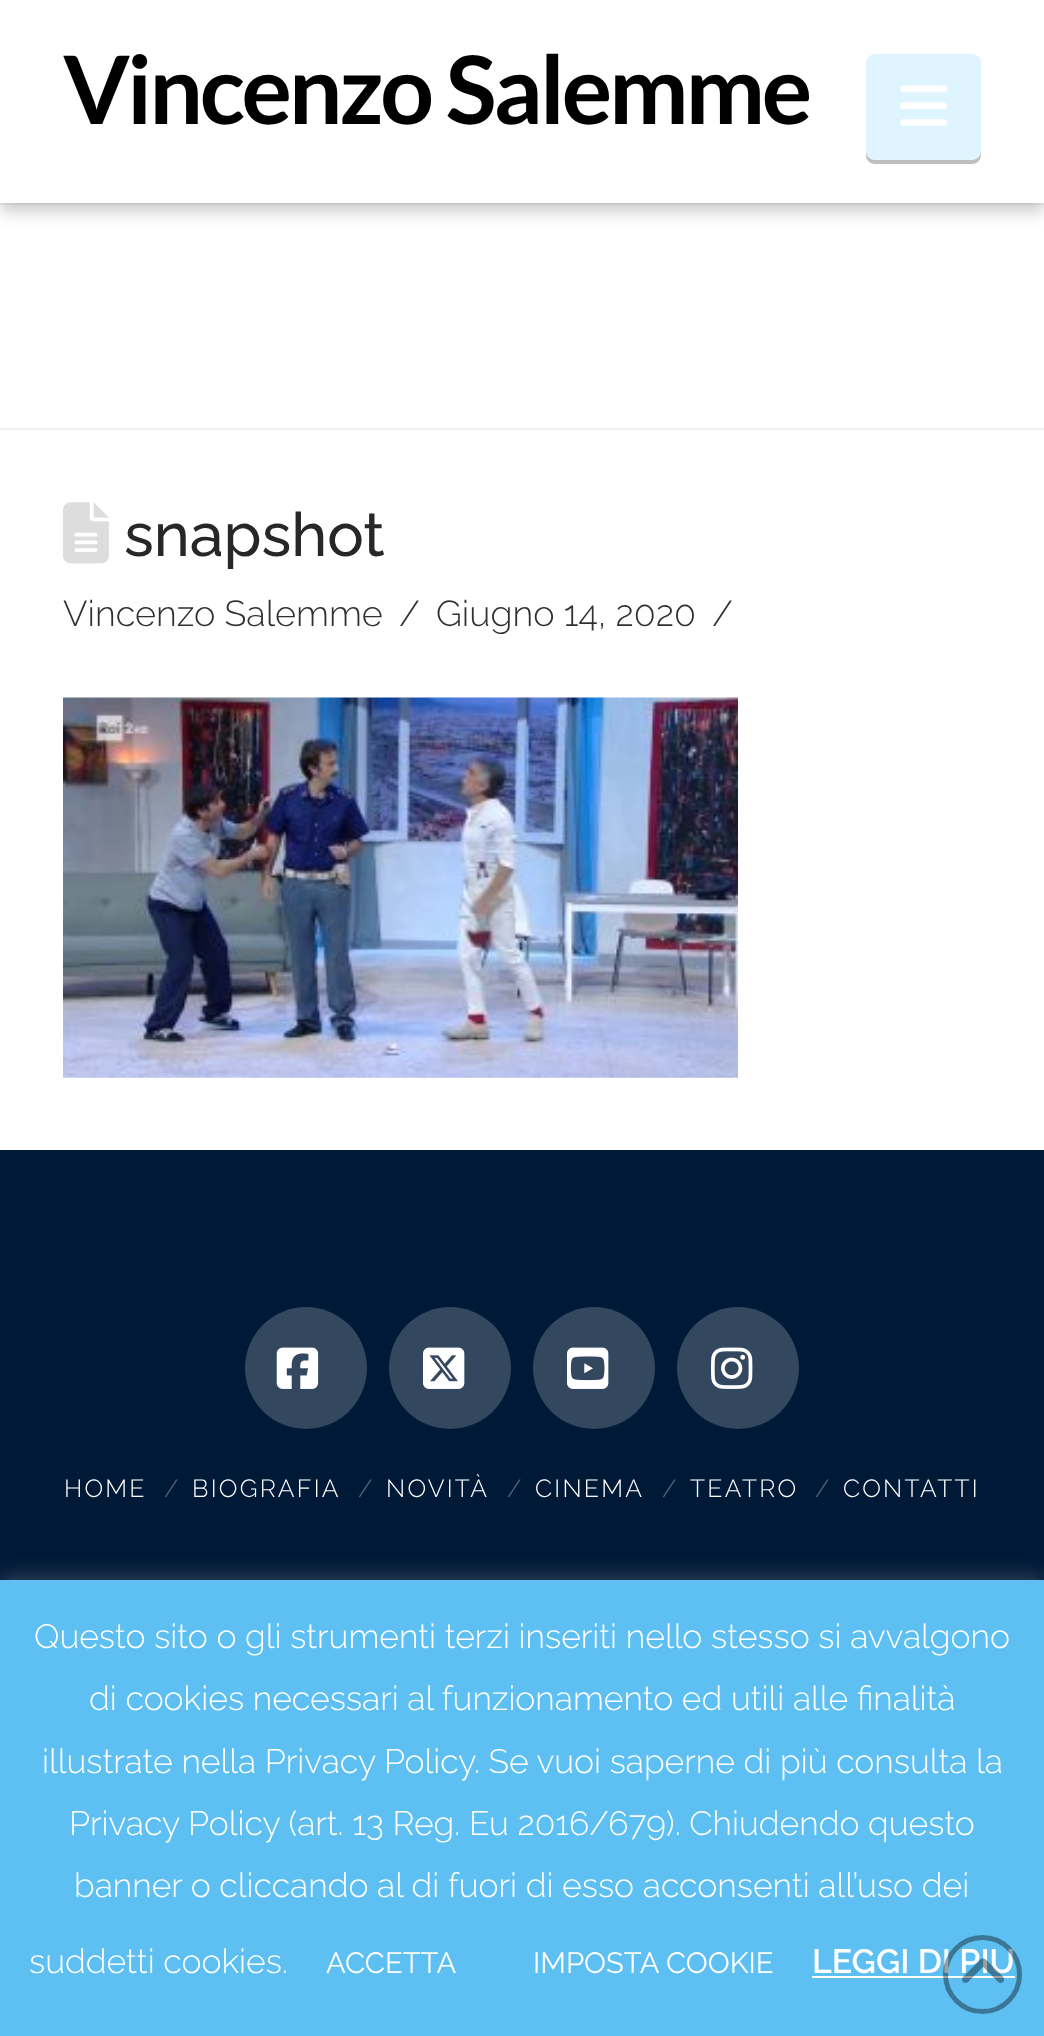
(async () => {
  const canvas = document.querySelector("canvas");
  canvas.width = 1044;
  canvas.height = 2036;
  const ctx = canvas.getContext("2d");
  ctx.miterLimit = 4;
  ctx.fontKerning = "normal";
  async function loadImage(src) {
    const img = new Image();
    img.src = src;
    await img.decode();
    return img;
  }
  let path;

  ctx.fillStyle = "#ffffff";
  ctx.fillRect(0, 0, 1044, 2036);
  ctx.fillStyle = "#f2f2f2";
  ctx.fillRect(0, 203, 1044, 2);
  ctx.fillStyle = "rgba(0, 0, 0, 0.2)";
  ctx.filter = "blur(8px)";
  ctx.beginPath();
  ctx.rect(0, 9, 1044, 203);
  ctx.fill();
  ctx.filter = "none";
  ctx.fillStyle = "#ffffff";
  ctx.fillRect(0, 0, 1044, 203);
  ctx.fillStyle = "#bfbfbf";
  path = new Path2D("M866 66V155C866 160 870 164 875 164H972C977 164 981 160 981 155V151C981 156 977 160 972 160H875C870 160 866 156 866 151Z");
  ctx.fill(path);
  ctx.fillStyle = "rgba(122, 211, 255, 0.25)";
  ctx.beginPath();
  ctx.roundRect(866, 54, 115, 106, 9);
  ctx.fill();
  ctx.drawImage(await loadImage("img/1.png"), 900, 85, 48, 41);
  ctx.fillStyle = "#f2f2f2";
  ctx.fillRect(0, 428, 1044, 2);
  ctx.drawImage(await loadImage("img/2.png"), 63, 502, 46, 62);
  ctx.drawImage(await loadImage("img/3.png"), 63, 697, 675, 381);
  ctx.fillStyle = "#001937";
  ctx.fillRect(0, 1150, 1044, 430);
  ctx.fillStyle = "#33475f";
  ctx.beginPath();
  ctx.arc(306, 1368, 61, 0, Math.PI * 2);
  ctx.fill();
  ctx.drawImage(await loadImage("img/4.png"), 276, 1347, 43, 42);
  ctx.beginPath();
  ctx.arc(450, 1368, 61, 0, Math.PI * 2);
  ctx.fill();
  ctx.drawImage(await loadImage("img/5.png"), 423, 1347, 42, 42);
  ctx.beginPath();
  ctx.arc(594, 1368, 61, 0, Math.PI * 2);
  ctx.fill();
  ctx.drawImage(await loadImage("img/6.png"), 567, 1347, 42, 42);
  ctx.beginPath();
  ctx.arc(738, 1368, 61, 0, Math.PI * 2);
  ctx.fill();
  ctx.drawImage(await loadImage("img/7.png"), 711, 1347, 42, 42);
  ctx.fillStyle = "rgba(172, 171, 171, 0.3)";
  ctx.filter = "blur(11px)";
  ctx.beginPath();
  ctx.rect(0, 1577, 1044, 457);
  ctx.fill();
  ctx.filter = "none";
  ctx.fillStyle = "#5ec0f2";
  ctx.fillRect(0, 1580, 1044, 456);
  ctx.fillStyle = "#ffffff";
  ctx.fillRect(812, 1976, 203, 2);
  ctx.letterSpacing = "-3.25px";
  ctx.font = "bold 94.5px Lato";
  ctx.fillStyle = "#000000";
  ctx.fillText("Vincenzo Salemme", 63, 124);
  ctx.letterSpacing = "0px";
  ctx.font = "500 61px Raleway";
  ctx.fillStyle = "#272727";
  ctx.fillText("snapshot", 124, 556);
  ctx.font = "300 36px Raleway";
  ctx.fillStyle = "#303030";
  for (const [text, x, y] of [
    ["Vincenzo Salemme", 63, 626],
    ["/", 399, 626],
    ["Giugno 14, 2020", 436, 626],
    ["/", 712, 626],
  ]) {
    ctx.fillText(text, x, y);
  }
  ctx.letterSpacing = "2.25px";
  ctx.font = "300 24.75px Raleway";
  ctx.fillStyle = "#ffffff";
  ctx.fillText("HOME", 64, 1497);
  ctx.letterSpacing = "0px";
  ctx.fillStyle = "#596a7d";
  ctx.fillText("/", 164, 1497);
  ctx.letterSpacing = "2.25px";
  ctx.fillStyle = "#ffffff";
  ctx.fillText("BIOGRAFIA", 192, 1497);
  ctx.letterSpacing = "0px";
  ctx.fillStyle = "#596a7d";
  ctx.fillText("/", 358, 1497);
  ctx.letterSpacing = "2.25px";
  ctx.fillStyle = "#ffffff";
  ctx.fillText("NOVITÀ", 386, 1497);
  ctx.letterSpacing = "0px";
  ctx.fillStyle = "#596a7d";
  ctx.fillText("/", 507, 1497);
  ctx.letterSpacing = "2.25px";
  ctx.fillStyle = "#ffffff";
  ctx.fillText("CINEMA", 535, 1497);
  ctx.letterSpacing = "0px";
  ctx.fillStyle = "#596a7d";
  ctx.fillText("/", 662, 1497);
  ctx.letterSpacing = "2.25px";
  ctx.fillStyle = "#ffffff";
  ctx.fillText("TEATRO", 690, 1497);
  ctx.letterSpacing = "0px";
  ctx.fillStyle = "#596a7d";
  ctx.fillText("/", 815, 1497);
  ctx.letterSpacing = "2.25px";
  ctx.fillStyle = "#ffffff";
  ctx.fillText("CONTATTI", 843, 1497);
  ctx.letterSpacing = "0px";
  ctx.font = "300 33.75px Raleway";
  for (const [text, x, y] of [
    ["Questo sito o gli strumenti terzi inseriti nello stesso si avvalgono", 34, 1648],
    ["di cookies necessari al funzionamento ed utili alle finalità", 89, 1710],
    ["illustrate nella Privacy Policy. Se vuoi saperne di più consulta la", 42, 1773],
    ["Privacy Policy (art. 13 Reg. Eu 2016/679). Chiudendo questo", 69, 1835],
    ["banner o cliccando al di fuori di esso acconsenti all’uso dei", 74, 1897],
    ["suddetti cookies.", 29, 1973],
  ]) {
    ctx.fillText(text, x, y);
  }
  ctx.font = "29.25px Raleway";
  ctx.fillText("ACCETTA", 326, 1973);
  ctx.fillText("IMPOSTA COOKIE", 533, 1973);
  ctx.font = "600 33.75px Raleway";
  ctx.fillText("LEGGI DI PIU", 812, 1973);
  ctx.beginPath();
  ctx.arc(982.5, 1974.5, 37, 0, Math.PI * 2);
  ctx.strokeStyle = "rgba(0, 0, 0, 0.38)";
  ctx.lineWidth = 5;
  ctx.stroke();
  ctx.drawImage(await loadImage("img/8.png"), 962, 1958, 43, 25);
})();
